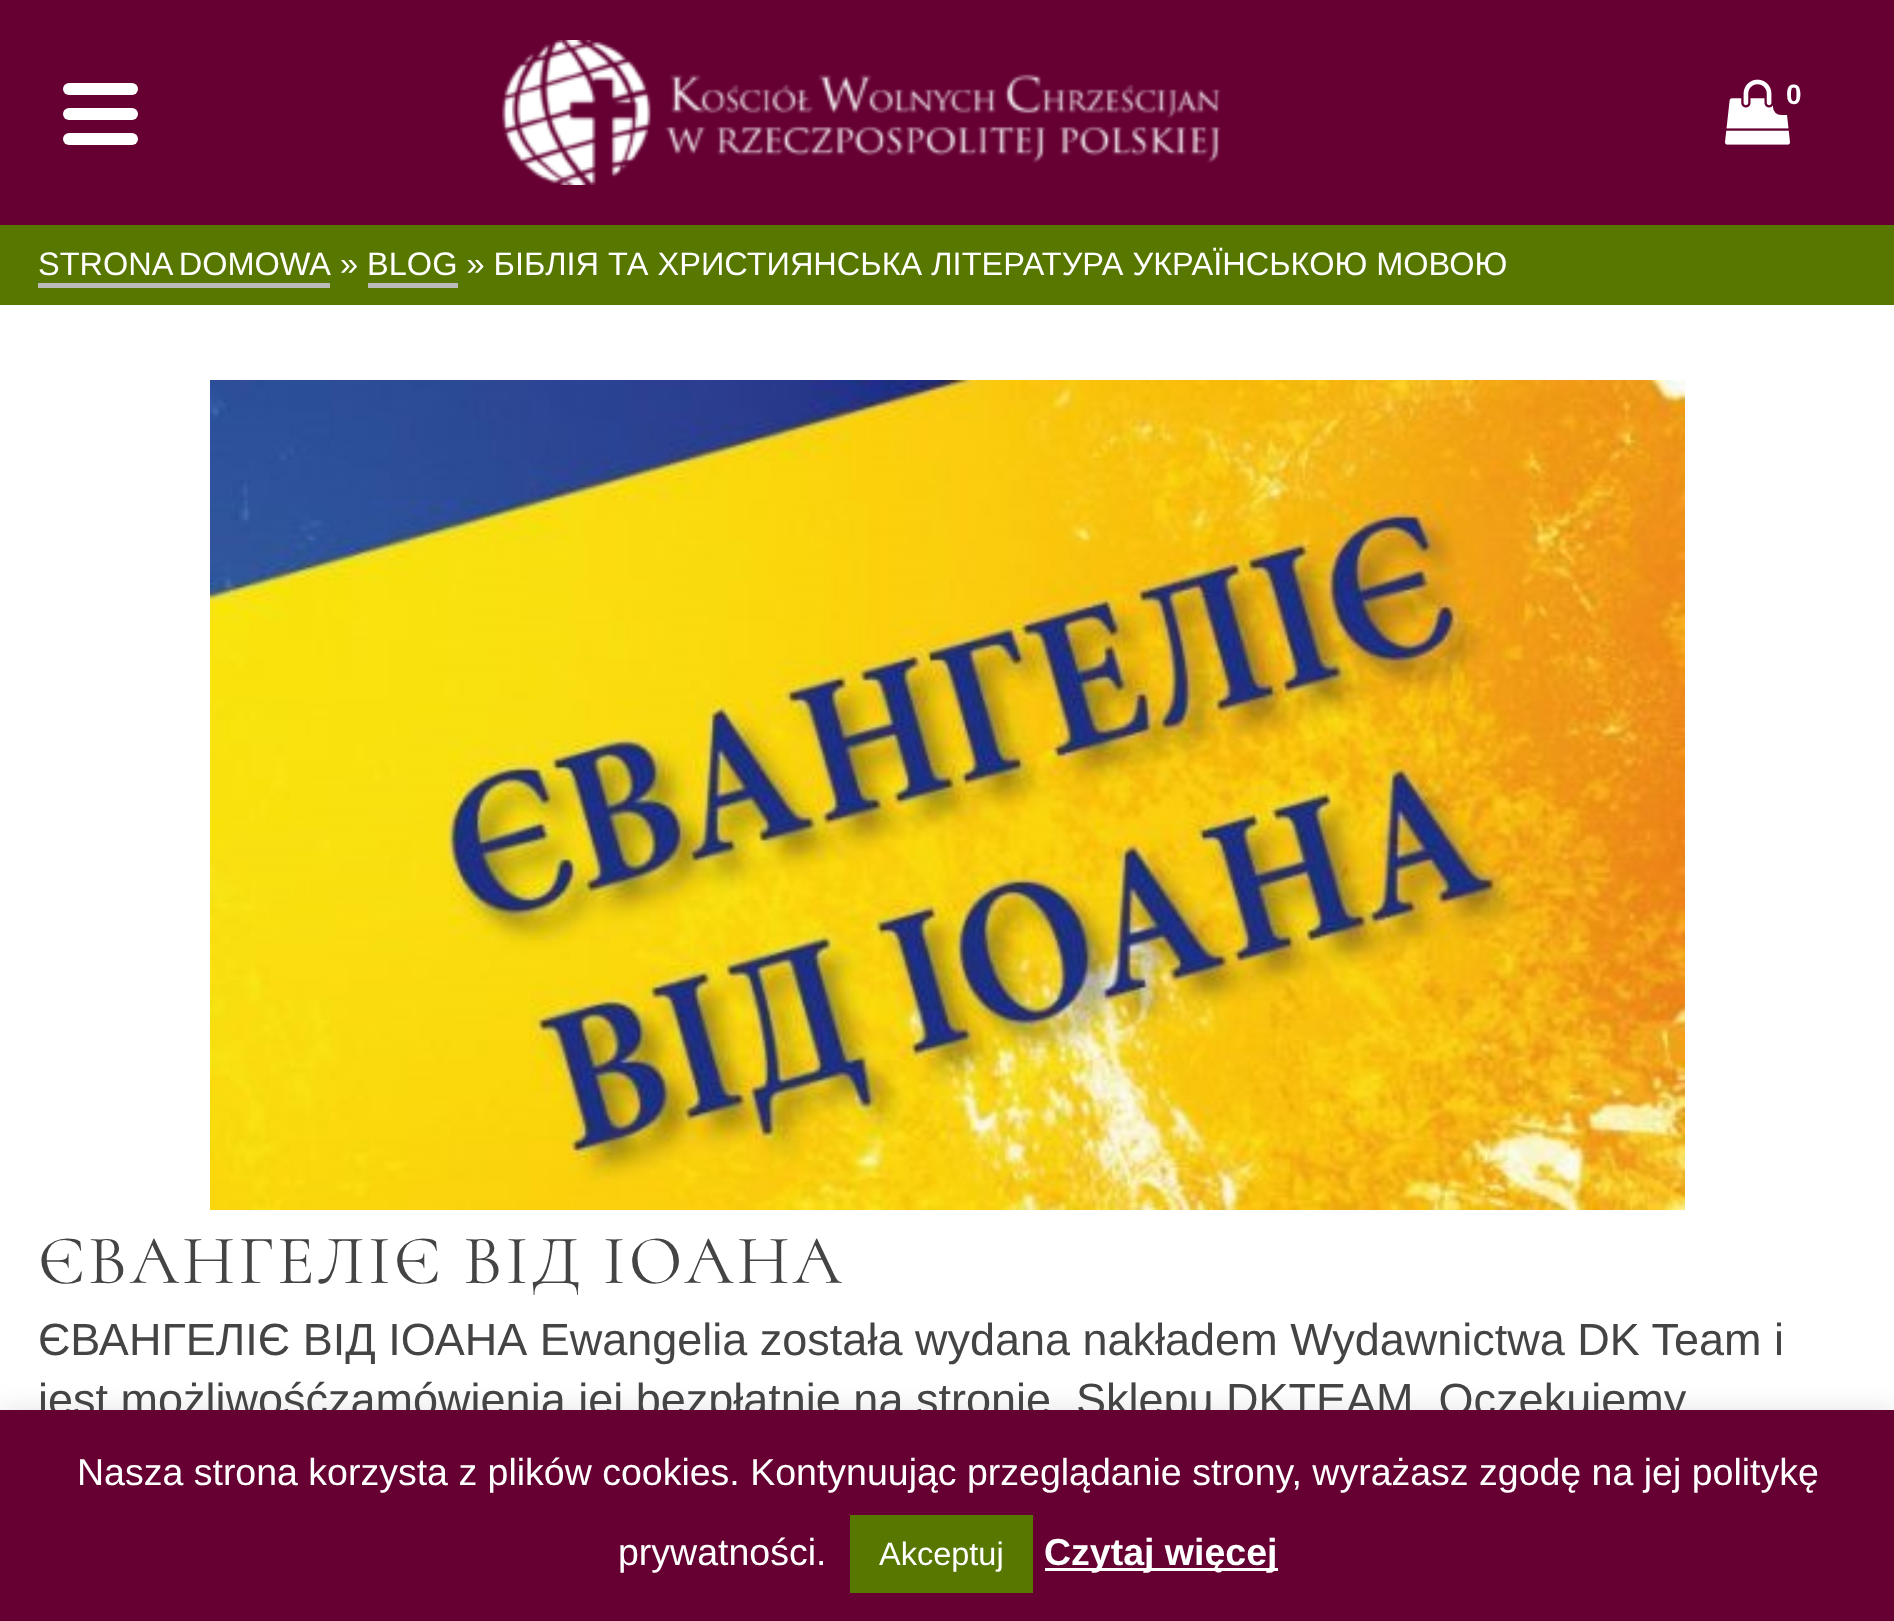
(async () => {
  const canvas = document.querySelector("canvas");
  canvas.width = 1894;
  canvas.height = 1621;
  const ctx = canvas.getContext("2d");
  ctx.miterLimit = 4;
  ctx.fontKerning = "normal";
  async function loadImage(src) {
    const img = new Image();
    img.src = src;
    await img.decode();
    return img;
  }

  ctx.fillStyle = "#ffffff";
  ctx.fillRect(0, 0, 1894, 1621);
  ctx.fillStyle = "#660033";
  ctx.fillRect(0, 0, 1894, 225);
  ctx.fillStyle = "#ffffff";
  ctx.beginPath();
  ctx.roundRect(63, 83, 75, 12, 6);
  ctx.fill();
  ctx.beginPath();
  ctx.roundRect(63, 108, 75, 12, 6);
  ctx.fill();
  ctx.beginPath();
  ctx.roundRect(63, 133, 75, 12, 6);
  ctx.fill();
  ctx.drawImage(await loadImage("img/1.png"), 502, 40, 719, 145);
  ctx.drawImage(await loadImage("img/2.png"), 1725, 79, 65, 66);
  ctx.fillStyle = "#660033";
  ctx.beginPath();
  ctx.roundRect(1773, 73, 42, 42, 8);
  ctx.fill();
  for (const [x, y, w, h, color] of [
    [0, 225, 1894, 80, "#577700"],
    [38, 283, 292, 5, "#bbbbbb"],
    [368, 283, 90, 5, "#bbbbbb"],
  ]) {
    ctx.fillStyle = color;
    ctx.fillRect(x, y, w, h);
  }
  ctx.drawImage(await loadImage("img/3.png"), 210, 380, 1475, 830);
  ctx.fillStyle = "rgba(172, 171, 171, 0.3)";
  ctx.filter = "blur(12.5px)";
  ctx.beginPath();
  ctx.rect(0, 1408, 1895, 212);
  ctx.fill();
  ctx.filter = "none";
  ctx.font = "bold 28px Liberation Sans";
  ctx.fillStyle = "#ffffff";
  ctx.fillText("0", 1786, 104);
  ctx.wordSpacing = "-2px";
  ctx.font = "32.5px Liberation Sans";
  ctx.fillText("STRONA DOMOWA", 38, 275);
  ctx.wordSpacing = "0px";
  ctx.fillText("» BLOG » БІБЛІЯ ТА ХРИСТИЯНСЬКА ЛІТЕРАТУРА УКРАЇНСЬКОЮ МОВОЮ", 340, 275);
  ctx.letterSpacing = "3px";
  ctx.font = "70px Cormorant SC";
  ctx.fillStyle = "#444444";
  ctx.fillText("ЄВАНГЕЛІЄ ВІД ІОАНА", 38, 1283);
  ctx.letterSpacing = "0px";
  ctx.font = "45px Liberation Sans";
  ctx.fillText("ЄВАНГЕЛІЄ ВІД ІОАНА Ewangelia została wydana nakładem Wydawnictwa DK Team i", 38, 1355);
  ctx.fillText("jest możliwośćzamówienia jej bezpłatnie na stronie  Sklepu DKTEAM  Oczekujemy", 38, 1415);
  ctx.fillStyle = "#660033";
  ctx.fillRect(0, 1410, 1894, 211);
  ctx.font = "37.5px Liberation Sans";
  ctx.fillStyle = "#ffffff";
  ctx.fillText("Nasza strona korzysta z plików cookies. Kontynuując przeglądanie strony, wyrażasz zgodę na jej politykę", 77, 1485);
  ctx.fillText("prywatności.", 618, 1565);
  ctx.fillStyle = "#577700";
  ctx.fillRect(850, 1515, 183, 78);
  ctx.font = "32.5px Liberation Sans";
  ctx.fillStyle = "#ffffff";
  ctx.fillText("Akceptuj", 879, 1565);
  ctx.fillRect(1045, 1568, 233, 3);
  ctx.font = "bold 37.5px Liberation Sans";
  ctx.fillText("Czytaj więcej", 1044, 1565);
})();
